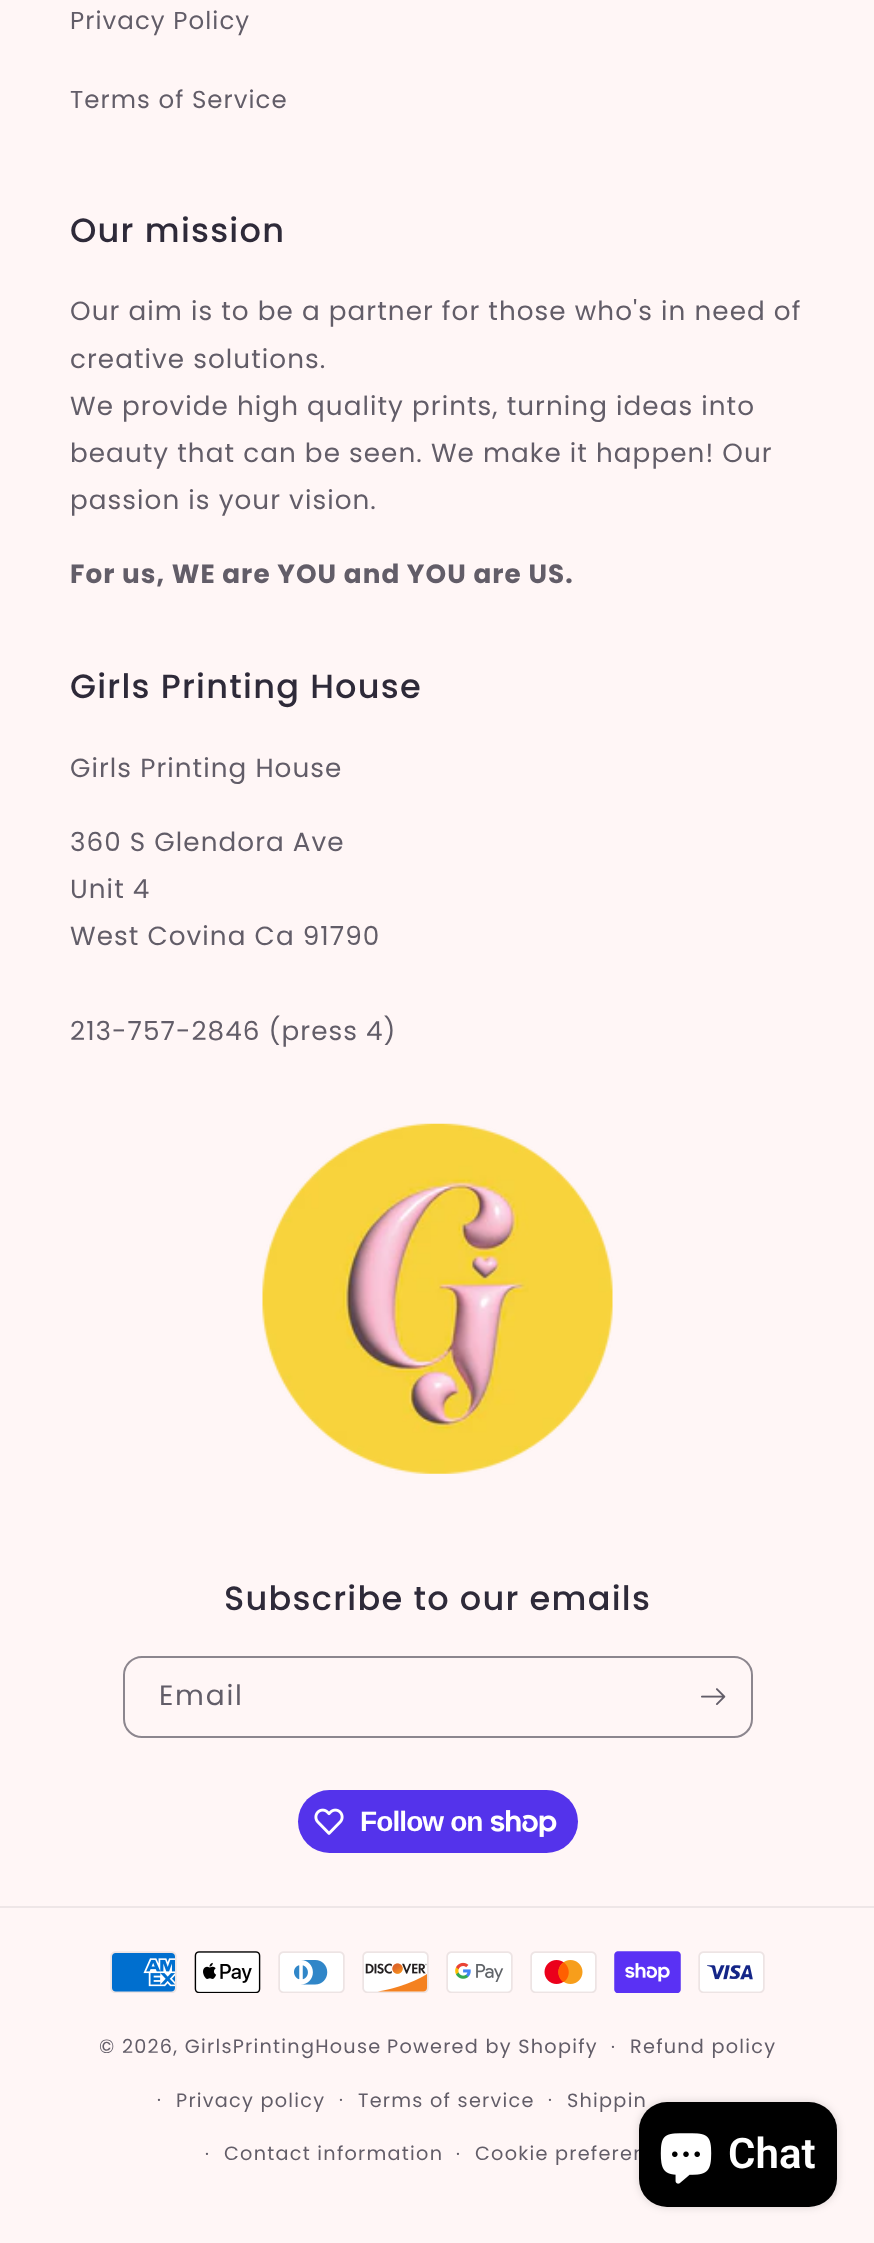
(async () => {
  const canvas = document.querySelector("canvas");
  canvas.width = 874;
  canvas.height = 2243;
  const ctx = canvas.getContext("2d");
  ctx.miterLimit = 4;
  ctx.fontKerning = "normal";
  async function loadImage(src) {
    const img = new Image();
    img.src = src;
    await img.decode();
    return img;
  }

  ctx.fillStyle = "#fff6f6";
  ctx.fillRect(0, 0, 874, 2243);
  ctx.drawImage(await loadImage("img/1.png"), 262, 1123, 351, 351);
  ctx.beginPath();
  ctx.roundRect(124, 1657, 628, 80, 18);
  ctx.strokeStyle = "#8c868e";
  ctx.lineWidth = 2;
  ctx.stroke();
  ctx.drawImage(await loadImage("img/2.png"), 701, 1688, 25, 17);
  ctx.fillStyle = "#5433eb";
  ctx.beginPath();
  ctx.roundRect(298, 1790, 280, 63, 31.5);
  ctx.fill();
  ctx.drawImage(await loadImage("img/3.png"), 314, 1808, 30, 27);
  ctx.drawImage(await loadImage("img/4.png"), 490, 1810, 67, 27);
  ctx.fillStyle = "#eee6e7";
  ctx.fillRect(0, 1906, 874, 2);
  ctx.drawImage(await loadImage("img/5.png"), 110, 1951, 67, 42);
  ctx.drawImage(await loadImage("img/6.png"), 194, 1951, 67, 42);
  ctx.drawImage(await loadImage("img/7.png"), 278, 1951, 67, 42);
  ctx.drawImage(await loadImage("img/8.png"), 362, 1951, 67, 42);
  ctx.drawImage(await loadImage("img/9.png"), 446, 1951, 67, 42);
  ctx.drawImage(await loadImage("img/10.png"), 530, 1951, 67, 42);
  ctx.drawImage(await loadImage("img/11.png"), 614, 1951, 67, 42);
  ctx.drawImage(await loadImage("img/12.png"), 698, 1951, 67, 42);
  ctx.fillStyle = "rgba(0, 0, 0, 0.15)";
  ctx.filter = "blur(4.5px)";
  ctx.beginPath();
  ctx.roundRect(639, 2102, 198, 105, 28);
  ctx.fill();
  ctx.filter = "none";
  ctx.letterSpacing = "1.05px";
  ctx.font = "24.5px Poppins";
  ctx.fillStyle = "#625d68";
  ctx.fillText("Privacy Policy", 70, 29);
  ctx.fillText("Terms of Service", 70, 108);
  ctx.letterSpacing = "1.25px";
  ctx.font = "500 33.6px Poppins";
  ctx.fillStyle = "#2e2a39";
  ctx.fillText("Our mission", 70, 242);
  ctx.letterSpacing = "1.05px";
  ctx.font = "26.25px Poppins";
  ctx.fillStyle = "#625d68";
  for (const [text, x, y] of [
    ["Our aim is to be a partner for those who's in need of", 70, 320],
    ["creative solutions.", 70, 368],
    ["We provide high quality prints, turning ideas into", 70, 415],
    ["beauty that can be seen. We make it happen! Our", 70, 462],
    ["passion is your vision.", 70, 509],
  ]) {
    ctx.fillText(text, x, y);
  }
  ctx.font = "bold 26.25px Poppins";
  ctx.fillText("For us, WE are YOU and YOU are US.", 70, 583);
  ctx.letterSpacing = "1.25px";
  ctx.font = "500 33.6px Poppins";
  ctx.fillStyle = "#2e2a39";
  ctx.fillText("Girls Printing House", 70, 698);
  ctx.letterSpacing = "1.05px";
  ctx.font = "26.25px Poppins";
  ctx.fillStyle = "#625d68";
  for (const [text, x, y] of [
    ["Girls Printing House", 70, 777],
    ["360 S Glendora Ave", 70, 851],
    ["Unit 4", 70, 898],
    ["West Covina Ca 91790", 70, 945],
    ["213-757-2846 (press 4)", 70, 1040],
  ]) {
    ctx.fillText(text, x, y);
  }
  ctx.letterSpacing = "1.25px";
  ctx.font = "500 33.6px Poppins";
  ctx.fillStyle = "#2e2a39";
  ctx.fillText("Subscribe to our emails", 224, 1610);
  ctx.letterSpacing = "1.75px";
  ctx.font = "28px Poppins";
  ctx.fillStyle = "#625d68";
  ctx.fillText("Email", 159, 1705);
  ctx.letterSpacing = "-0.9px";
  ctx.font = "bold 28px Liberation Sans";
  ctx.fillStyle = "#ffffff";
  ctx.fillText("Follow on", 360, 1831);
  ctx.letterSpacing = "1.25px";
  ctx.font = "19.25px Poppins";
  ctx.fillStyle = "#625d68";
  ctx.fillText("© 2026, GirlsPrintingHouse", 99, 2053);
  ctx.font = "18px Poppins";
  ctx.fillText("·", 611, 2053);
  ctx.font = "19.25px Poppins";
  ctx.fillText("Refund policy", 630, 2053);
  ctx.font = "18px Poppins";
  ctx.fillText("·", 157, 2106);
  ctx.font = "19.25px Poppins";
  ctx.fillText("Privacy policy", 176, 2107);
  ctx.font = "18px Poppins";
  ctx.fillText("·", 339, 2106);
  ctx.font = "19.25px Poppins";
  ctx.fillText("Terms of service", 358, 2107);
  ctx.font = "18px Poppins";
  ctx.fillText("·", 548, 2106);
  ctx.font = "19.25px Poppins";
  ctx.fillText("Shippin", 567, 2107);
  ctx.font = "18px Poppins";
  ctx.fillText("·", 205, 2160);
  ctx.font = "19.25px Poppins";
  ctx.fillText("Contact information", 224, 2160);
  ctx.font = "18px Poppins";
  ctx.fillText("·", 456, 2160);
  ctx.font = "19.25px Poppins";
  ctx.fillText("Cookie preferen", 475, 2160);
  ctx.fillText("Powered by Shopify", 387, 2053);
  ctx.fillStyle = "#000000";
  ctx.beginPath();
  ctx.roundRect(639, 2102, 198, 105, 28);
  ctx.fill();
  ctx.drawImage(await loadImage("img/13.png"), 660, 2133, 52, 51);
  ctx.letterSpacing = "0px";
  ctx.font = "600 42px Roboto";
  ctx.fillStyle = "#ffffff";
  ctx.fillText("Chat", 728, 2168);
})();
